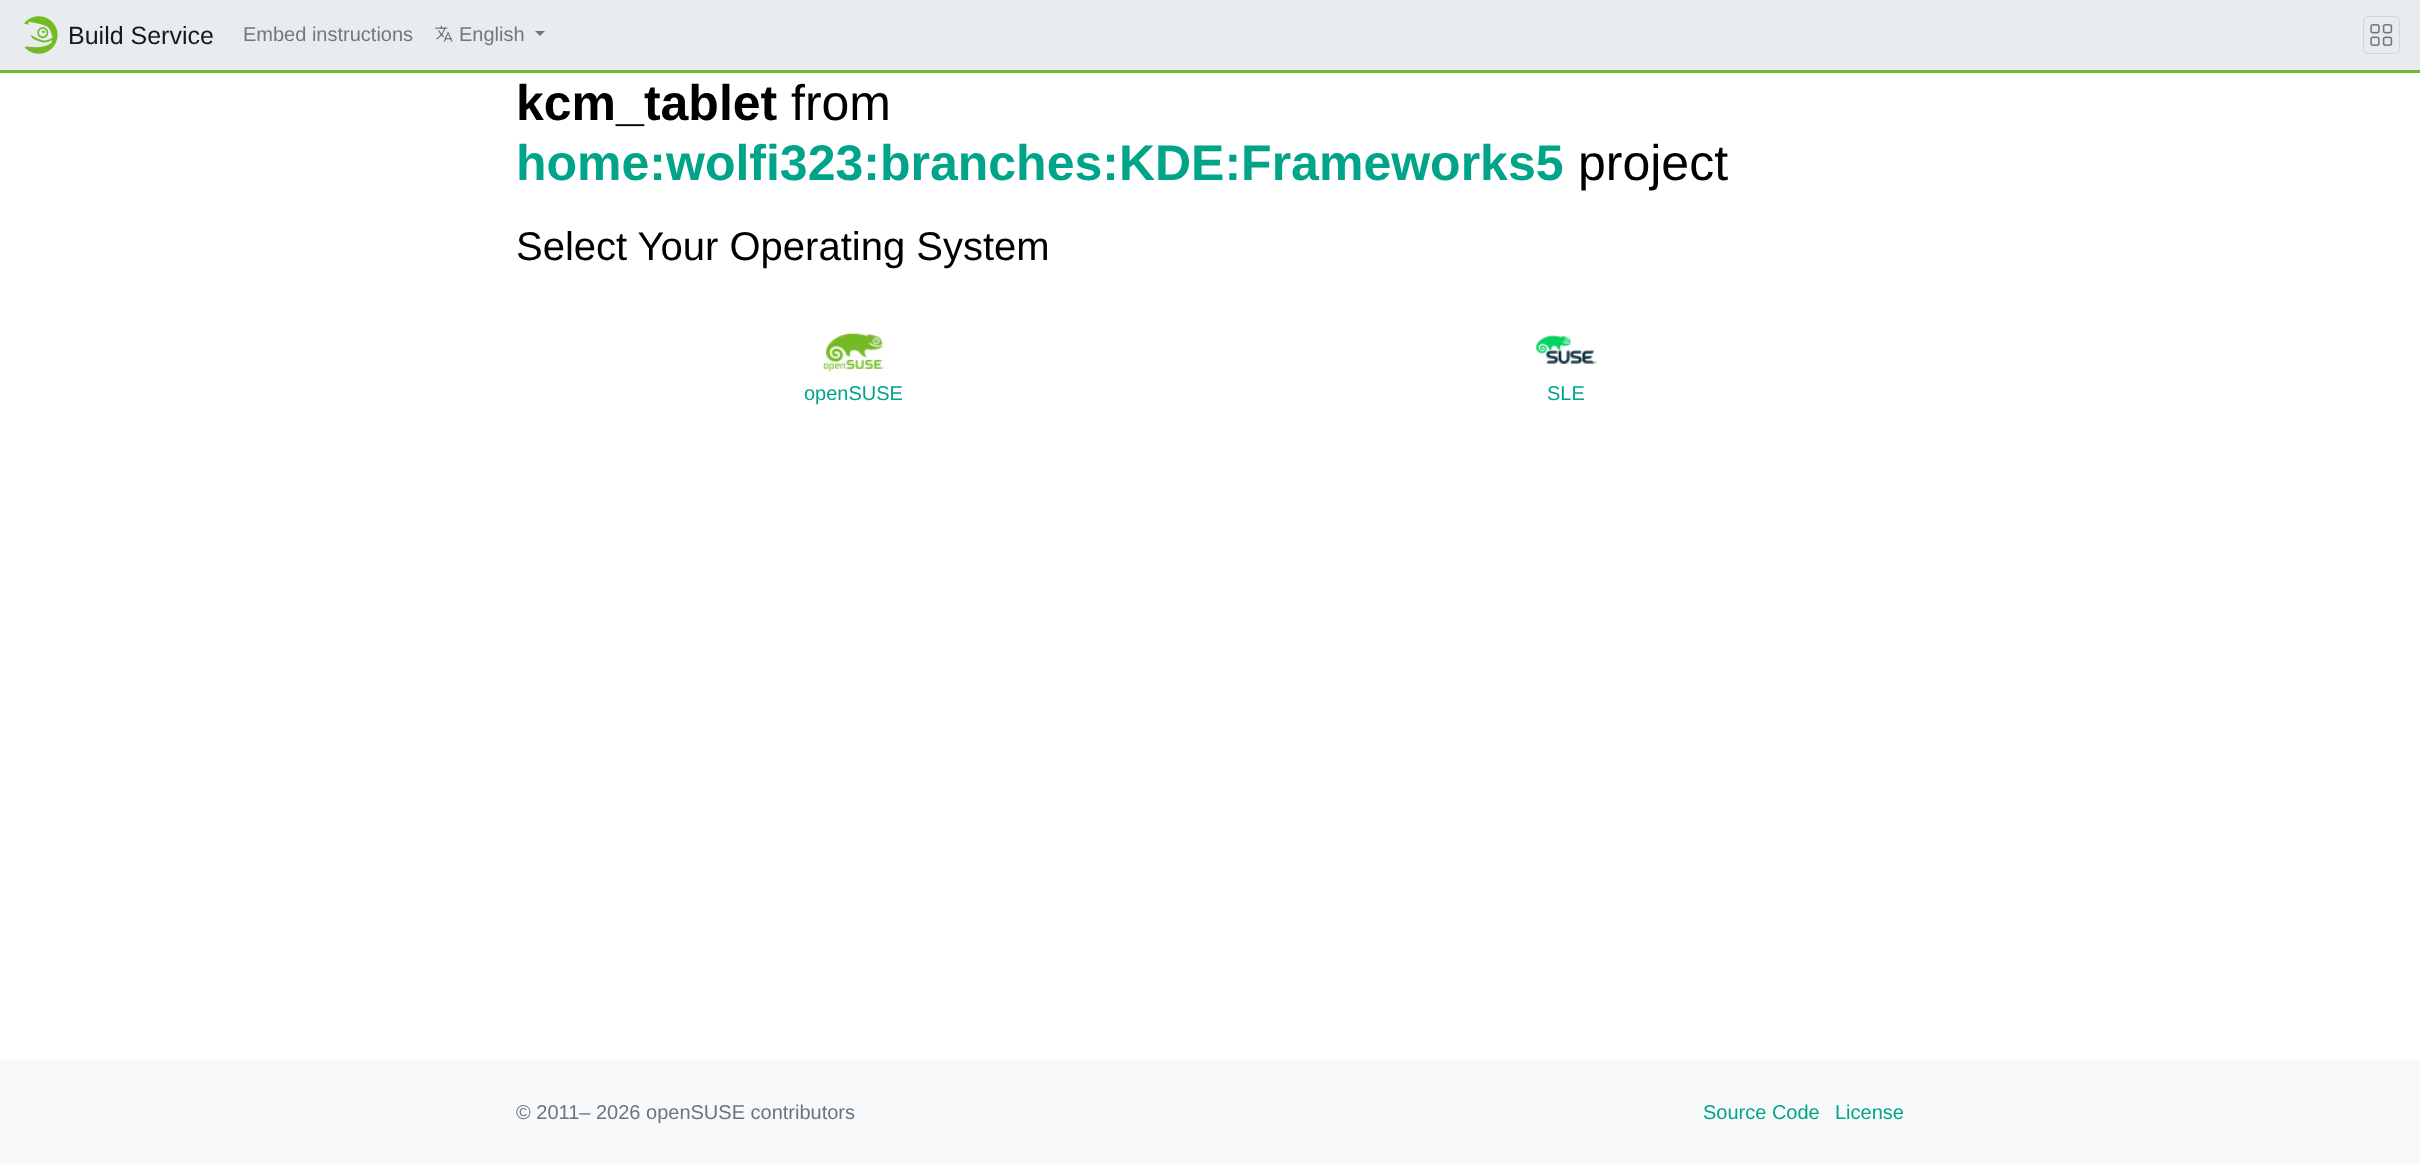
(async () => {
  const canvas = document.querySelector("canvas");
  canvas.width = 2420;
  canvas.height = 1164;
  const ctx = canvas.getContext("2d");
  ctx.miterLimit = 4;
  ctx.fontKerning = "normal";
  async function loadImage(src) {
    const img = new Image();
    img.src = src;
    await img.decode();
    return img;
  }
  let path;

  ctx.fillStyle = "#ffffff";
  ctx.fillRect(0, 0, 2420, 1164);
  ctx.fillStyle = "#e9ecef";
  ctx.fillRect(0, 0, 2420, 70);
  ctx.fillStyle = "#73ba25";
  ctx.fillRect(0, 70, 2420, 3);
  ctx.drawImage(await loadImage("img/1.png"), 24, 16, 34, 38);
  ctx.drawImage(await loadImage("img/2.png"), 435, 25, 18, 17);
  ctx.fillStyle = "#757678";
  path = new Path2D("M535 31H545L540 36Z");
  ctx.fill(path);
  ctx.beginPath();
  ctx.roundRect(2363.5, 16.5, 36, 37, 4.5);
  ctx.strokeStyle = "#d2d4d7";
  ctx.stroke();
  ctx.drawImage(await loadImage("img/3.png"), 2370, 24, 23, 22);
  ctx.drawImage(await loadImage("img/4.png"), 823, 332, 61, 40);
  ctx.drawImage(await loadImage("img/5.png"), 1536, 335, 61, 29);
  ctx.fillStyle = "#f8f9fa";
  ctx.fillRect(0, 1060, 2420, 104);
  ctx.font = "25px Liberation Sans";
  ctx.fillStyle = "#171818";
  ctx.fillText("Build Service", 68, 44);
  ctx.font = "20px Liberation Sans";
  ctx.fillStyle = "#757678";
  ctx.fillText("Embed instructions", 243, 41);
  ctx.fillText("English", 459, 41);
  ctx.font = "bold 50px Liberation Sans";
  ctx.fillStyle = "#000000";
  ctx.fillText("kcm_tablet", 516, 120);
  ctx.font = "50px Liberation Sans";
  ctx.fillText("from", 791, 120);
  ctx.font = "bold 50px Liberation Sans";
  ctx.fillStyle = "#00a489";
  ctx.fillText("home:wolfi323:branches:KDE:Frameworks5", 516, 180);
  ctx.font = "50px Liberation Sans";
  ctx.fillStyle = "#000000";
  ctx.fillText("project", 1578, 180);
  ctx.font = "40px Liberation Sans";
  ctx.fillText("Select Your Operating System", 516, 260);
  ctx.font = "20px Liberation Sans";
  ctx.fillStyle = "#00a489";
  ctx.fillText("openSUSE", 804, 400);
  ctx.fillText("SLE", 1547, 400);
  ctx.fillStyle = "#6c757d";
  ctx.fillText("© 2011– 2026 openSUSE contributors", 516, 1119);
  ctx.fillStyle = "#00a489";
  ctx.fillText("Source Code", 1703, 1119);
  ctx.fillText("License", 1835, 1119);
})();
